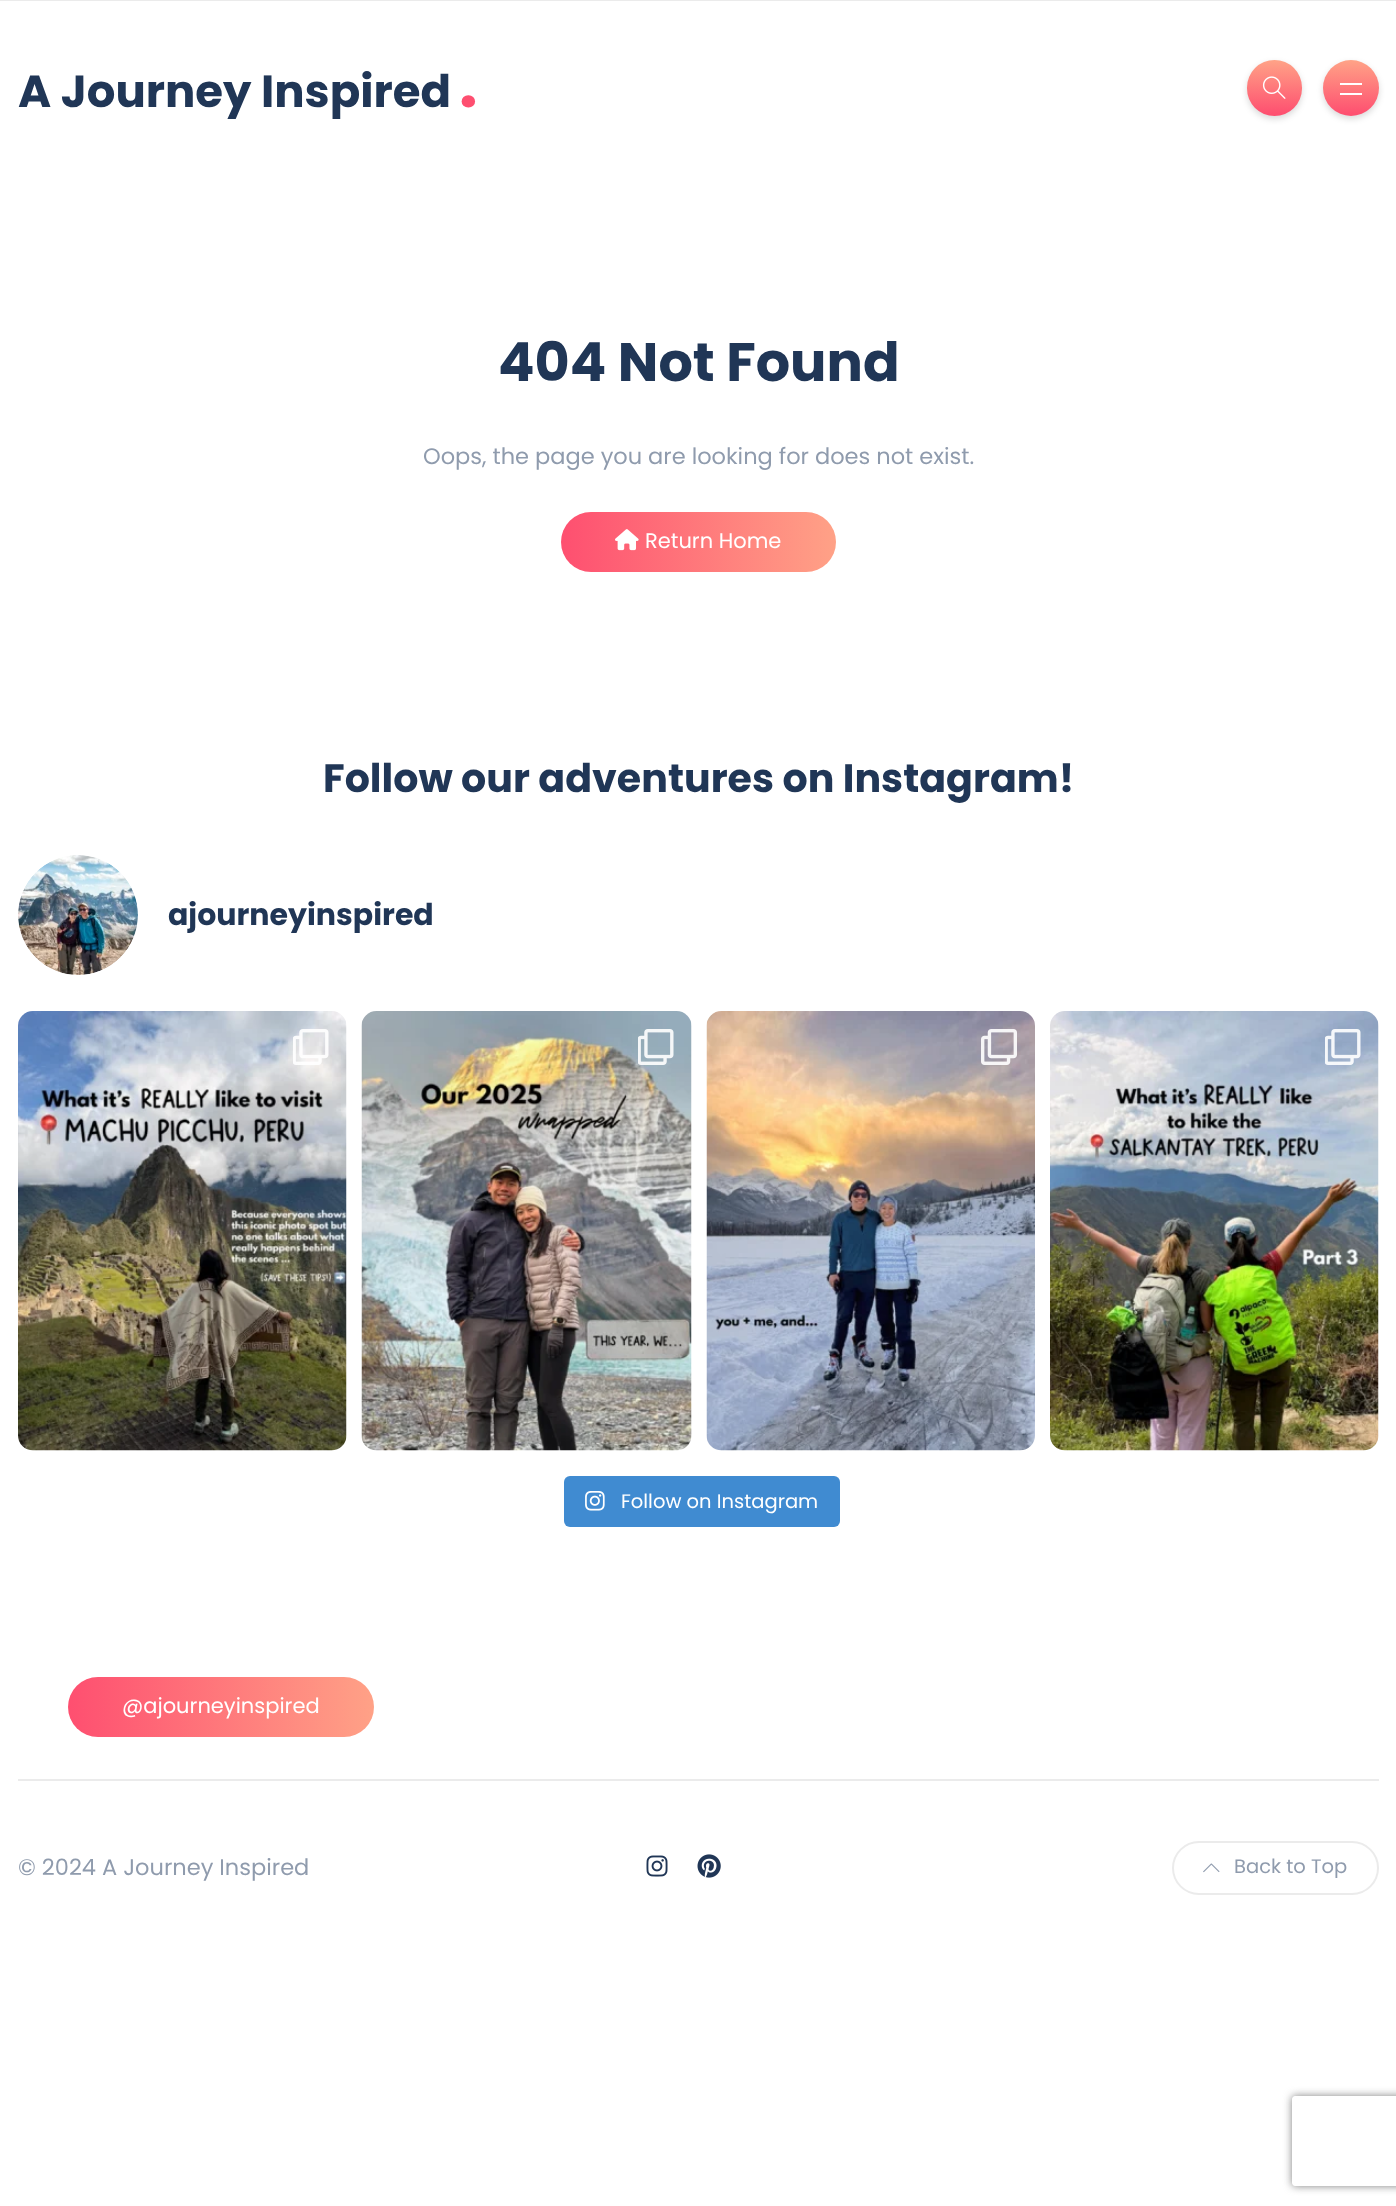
(async () => {
  const canvas = document.querySelector("canvas");
  canvas.width = 1396;
  canvas.height = 2206;
  const ctx = canvas.getContext("2d");
  ctx.miterLimit = 4;
  ctx.fontKerning = "normal";
  async function loadImage(src) {
    const img = new Image();
    img.src = src;
    await img.decode();
    return img;
  }
  let gradient, path;

  ctx.fillStyle = "#ffffff";
  ctx.fillRect(0, 0, 1396, 2206);
  ctx.fillStyle = "#ebebeb";
  ctx.fillRect(0, 0, 1396, 1);
  ctx.fillStyle = "rgba(0, 0, 0, 0.15)";
  ctx.filter = "blur(3px)";
  ctx.beginPath();
  ctx.roundRect(1247, 63, 55, 56, 27.5);
  ctx.fill();
  ctx.filter = "none";
  gradient = ctx.createLinearGradient(1274, 171, 1274, 60);
  gradient.addColorStop(0, "#ffa387");
  gradient.addColorStop(0.51, "#fe4f70");
  gradient.addColorStop(1, "#ffa387");
  ctx.fillStyle = gradient;
  ctx.beginPath();
  ctx.roundRect(1247, 60, 55, 56, 27.5);
  ctx.fill();
  ctx.drawImage(await loadImage("img/1.png"), 1262, 76, 24, 23);
  ctx.fillStyle = "rgba(0, 0, 0, 0.15)";
  ctx.filter = "blur(3px)";
  ctx.beginPath();
  ctx.roundRect(1323, 63, 56, 56, 28);
  ctx.fill();
  ctx.filter = "none";
  gradient = ctx.createLinearGradient(1351, 171, 1351, 60);
  gradient.addColorStop(0, "#ffa387");
  gradient.addColorStop(0.51, "#fe4f70");
  gradient.addColorStop(1, "#ffa387");
  ctx.fillStyle = gradient;
  ctx.beginPath();
  ctx.arc(1351, 88, 28, 0, Math.PI * 2);
  ctx.fill();
  ctx.fillStyle = "#ffffff";
  ctx.fillRect(1340, 83, 22, 2);
  ctx.fillRect(1340, 93, 22, 2);
  gradient = ctx.createLinearGradient(561, 542, 1110, 542);
  gradient.addColorStop(0, "#fe4f70");
  gradient.addColorStop(0.51, "#ffa387");
  gradient.addColorStop(1, "#fe4f70");
  ctx.fillStyle = gradient;
  ctx.beginPath();
  ctx.roundRect(561, 512, 275, 60, 30);
  ctx.fill();
  ctx.drawImage(await loadImage("img/2.png"), 615, 529, 24, 22);
  ctx.drawImage(await loadImage("img/3.png"), 18, 855, 120, 120);
  ctx.drawImage(await loadImage("img/4.png"), 18, 1011, 329, 440);
  ctx.drawImage(await loadImage("img/5.png"), 293, 1029, 36, 36);
  ctx.drawImage(await loadImage("img/6.png"), 361, 1011, 331, 440);
  ctx.drawImage(await loadImage("img/7.png"), 638, 1029, 36, 36);
  ctx.drawImage(await loadImage("img/8.png"), 706, 1011, 329, 440);
  ctx.drawImage(await loadImage("img/9.png"), 981, 1029, 36, 36);
  ctx.drawImage(await loadImage("img/10.png"), 1050, 1011, 329, 440);
  ctx.drawImage(await loadImage("img/11.png"), 1325, 1029, 36, 36);
  ctx.fillStyle = "#408bd1";
  ctx.beginPath();
  ctx.roundRect(564, 1476, 276, 51, 6);
  ctx.fill();
  ctx.drawImage(await loadImage("img/12.png"), 585, 1491, 20, 20);
  gradient = ctx.createLinearGradient(68, 1707, 680, 1707);
  gradient.addColorStop(0, "#fe4f70");
  gradient.addColorStop(0.51, "#ffa387");
  gradient.addColorStop(1, "#fe4f70");
  ctx.fillStyle = gradient;
  ctx.beginPath();
  ctx.roundRect(68, 1677, 306, 60, 30);
  ctx.fill();
  ctx.fillStyle = "#ebebeb";
  ctx.fillRect(18, 1779, 1361, 2);
  ctx.drawImage(await loadImage("img/13.png"), 646, 1855, 22, 22);
  ctx.drawImage(await loadImage("img/14.png"), 697, 1854, 24, 24);
  ctx.beginPath();
  ctx.roundRect(1173, 1842, 205, 52, 26);
  ctx.strokeStyle = "#ebebeb";
  ctx.lineWidth = 2;
  ctx.stroke();
  ctx.drawImage(await loadImage("img/15.png"), 1203, 1863, 17, 10);
  ctx.save();
  path = new Path2D("M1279 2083H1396V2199H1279ZM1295 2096H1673C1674.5 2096 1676 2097.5 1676 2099V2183C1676 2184.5 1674.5 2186 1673 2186H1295C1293.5 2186 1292 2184.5 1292 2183V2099C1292 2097.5 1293.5 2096 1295 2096Z");
  ctx.clip(path, "evenodd");
  ctx.fillStyle = "#808080";
  ctx.filter = "blur(4px)";
  ctx.beginPath();
  ctx.roundRect(1292, 2096, 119, 90, 3);
  ctx.fill();
  ctx.filter = "none";
  ctx.restore();
  ctx.font = "bold 45px Poppins";
  ctx.fillStyle = "#203656";
  ctx.fillText("A Journey Inspired", 18, 107);
  ctx.font = "bold 66px Poppins";
  ctx.fillStyle = "#fe4f70";
  ctx.fillText(".", 459, 107);
  ctx.font = "bold 54px Poppins";
  ctx.fillStyle = "#203656";
  ctx.fillText("404 Not Found", 498, 381);
  ctx.font = "22.5px Poppins";
  ctx.fillStyle = "#8f9bad";
  ctx.fillText("Oops, the page you are looking for does not exist.", 423, 464);
  ctx.font = "21px Poppins";
  ctx.fillStyle = "#ffffff";
  ctx.fillText("Return Home", 645, 548);
  ctx.font = "bold 39.6px Poppins";
  ctx.fillStyle = "#203656";
  ctx.fillText("Follow our adventures on Instagram!", 323, 792);
  ctx.font = "bold 30px Poppins";
  ctx.fillText("ajourneyinspired", 168, 925);
  ctx.font = "19.5px Poppins";
  ctx.fillStyle = "#ffffff";
  ctx.fillText("Follow on Instagram", 621, 1508);
  ctx.font = "21px Poppins";
  ctx.fillText("@ajourneyinspired", 122, 1713);
  ctx.font = "22.5px Poppins";
  ctx.fillStyle = "#8f9bad";
  ctx.fillText("© 2024 A Journey Inspired", 18, 1875);
  ctx.font = "19.5px Poppins";
  ctx.fillText("Back to Top", 1234, 1873);
})();
